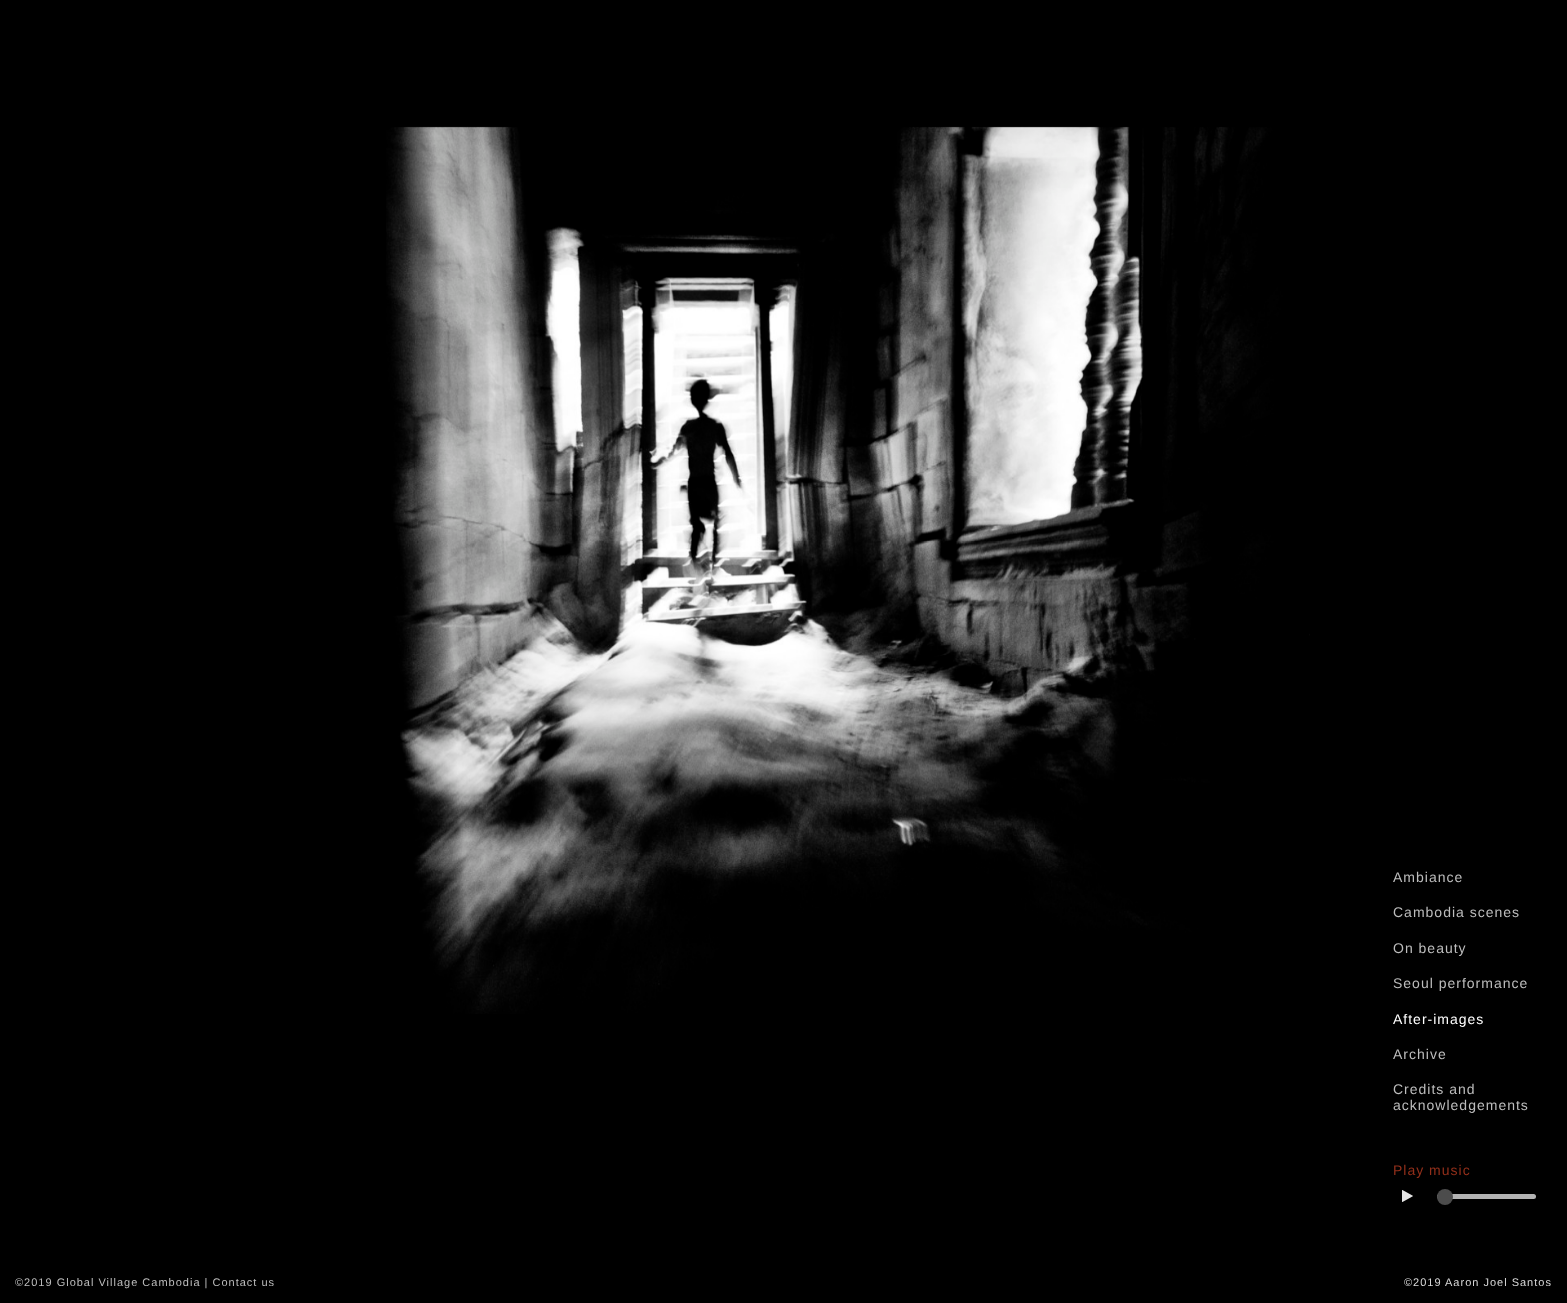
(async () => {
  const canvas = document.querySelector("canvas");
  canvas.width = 1567;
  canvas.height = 1303;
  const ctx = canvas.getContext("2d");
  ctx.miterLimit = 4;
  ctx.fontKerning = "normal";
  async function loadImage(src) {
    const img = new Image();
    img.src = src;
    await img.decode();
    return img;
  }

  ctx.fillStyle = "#000000";
  ctx.fillRect(0, 0, 1567, 1303);
  ctx.drawImage(await loadImage("img/1.png"), 386, 126, 924, 888);
  ctx.drawImage(await loadImage("img/2.png"), 1402, 1190, 11, 12);
  ctx.fillStyle = "#b3b3b3";
  ctx.beginPath();
  ctx.roundRect(1437, 1194, 99, 5, 2.5);
  ctx.fill();
  ctx.fillStyle = "#4c4c4c";
  ctx.beginPath();
  ctx.arc(1445, 1197, 8, 0, Math.PI * 2);
  ctx.fill();
  ctx.letterSpacing = "1px";
  ctx.font = "14px Liberation Sans";
  ctx.fillStyle = "#bdbdbd";
  for (const [text, x, y] of [
    ["Ambiance", 1393, 882],
    ["Cambodia scenes", 1393, 917],
    ["On beauty", 1393, 953],
    ["Seoul performance", 1393, 988],
  ]) {
    ctx.fillText(text, x, y);
  }
  ctx.fillStyle = "#ffffff";
  ctx.fillText("After-images", 1393, 1024);
  ctx.fillStyle = "#bdbdbd";
  for (const [text, x, y] of [
    ["Archive", 1393, 1059],
    ["Credits and", 1393, 1094],
    ["acknowledgements", 1393, 1110],
  ]) {
    ctx.fillText(text, x, y);
  }
  ctx.fillStyle = "#932f1a";
  ctx.fillText("Play music", 1393, 1175);
  ctx.font = "11px Liberation Sans";
  ctx.fillStyle = "#bdbdbd";
  ctx.fillText("©2019 Global Village Cambodia | Contact us", 15, 1286);
  ctx.fillStyle = "#d9d9d9";
  ctx.fillText("©2019 Aaron Joel Santos", 1404, 1286);
})();
